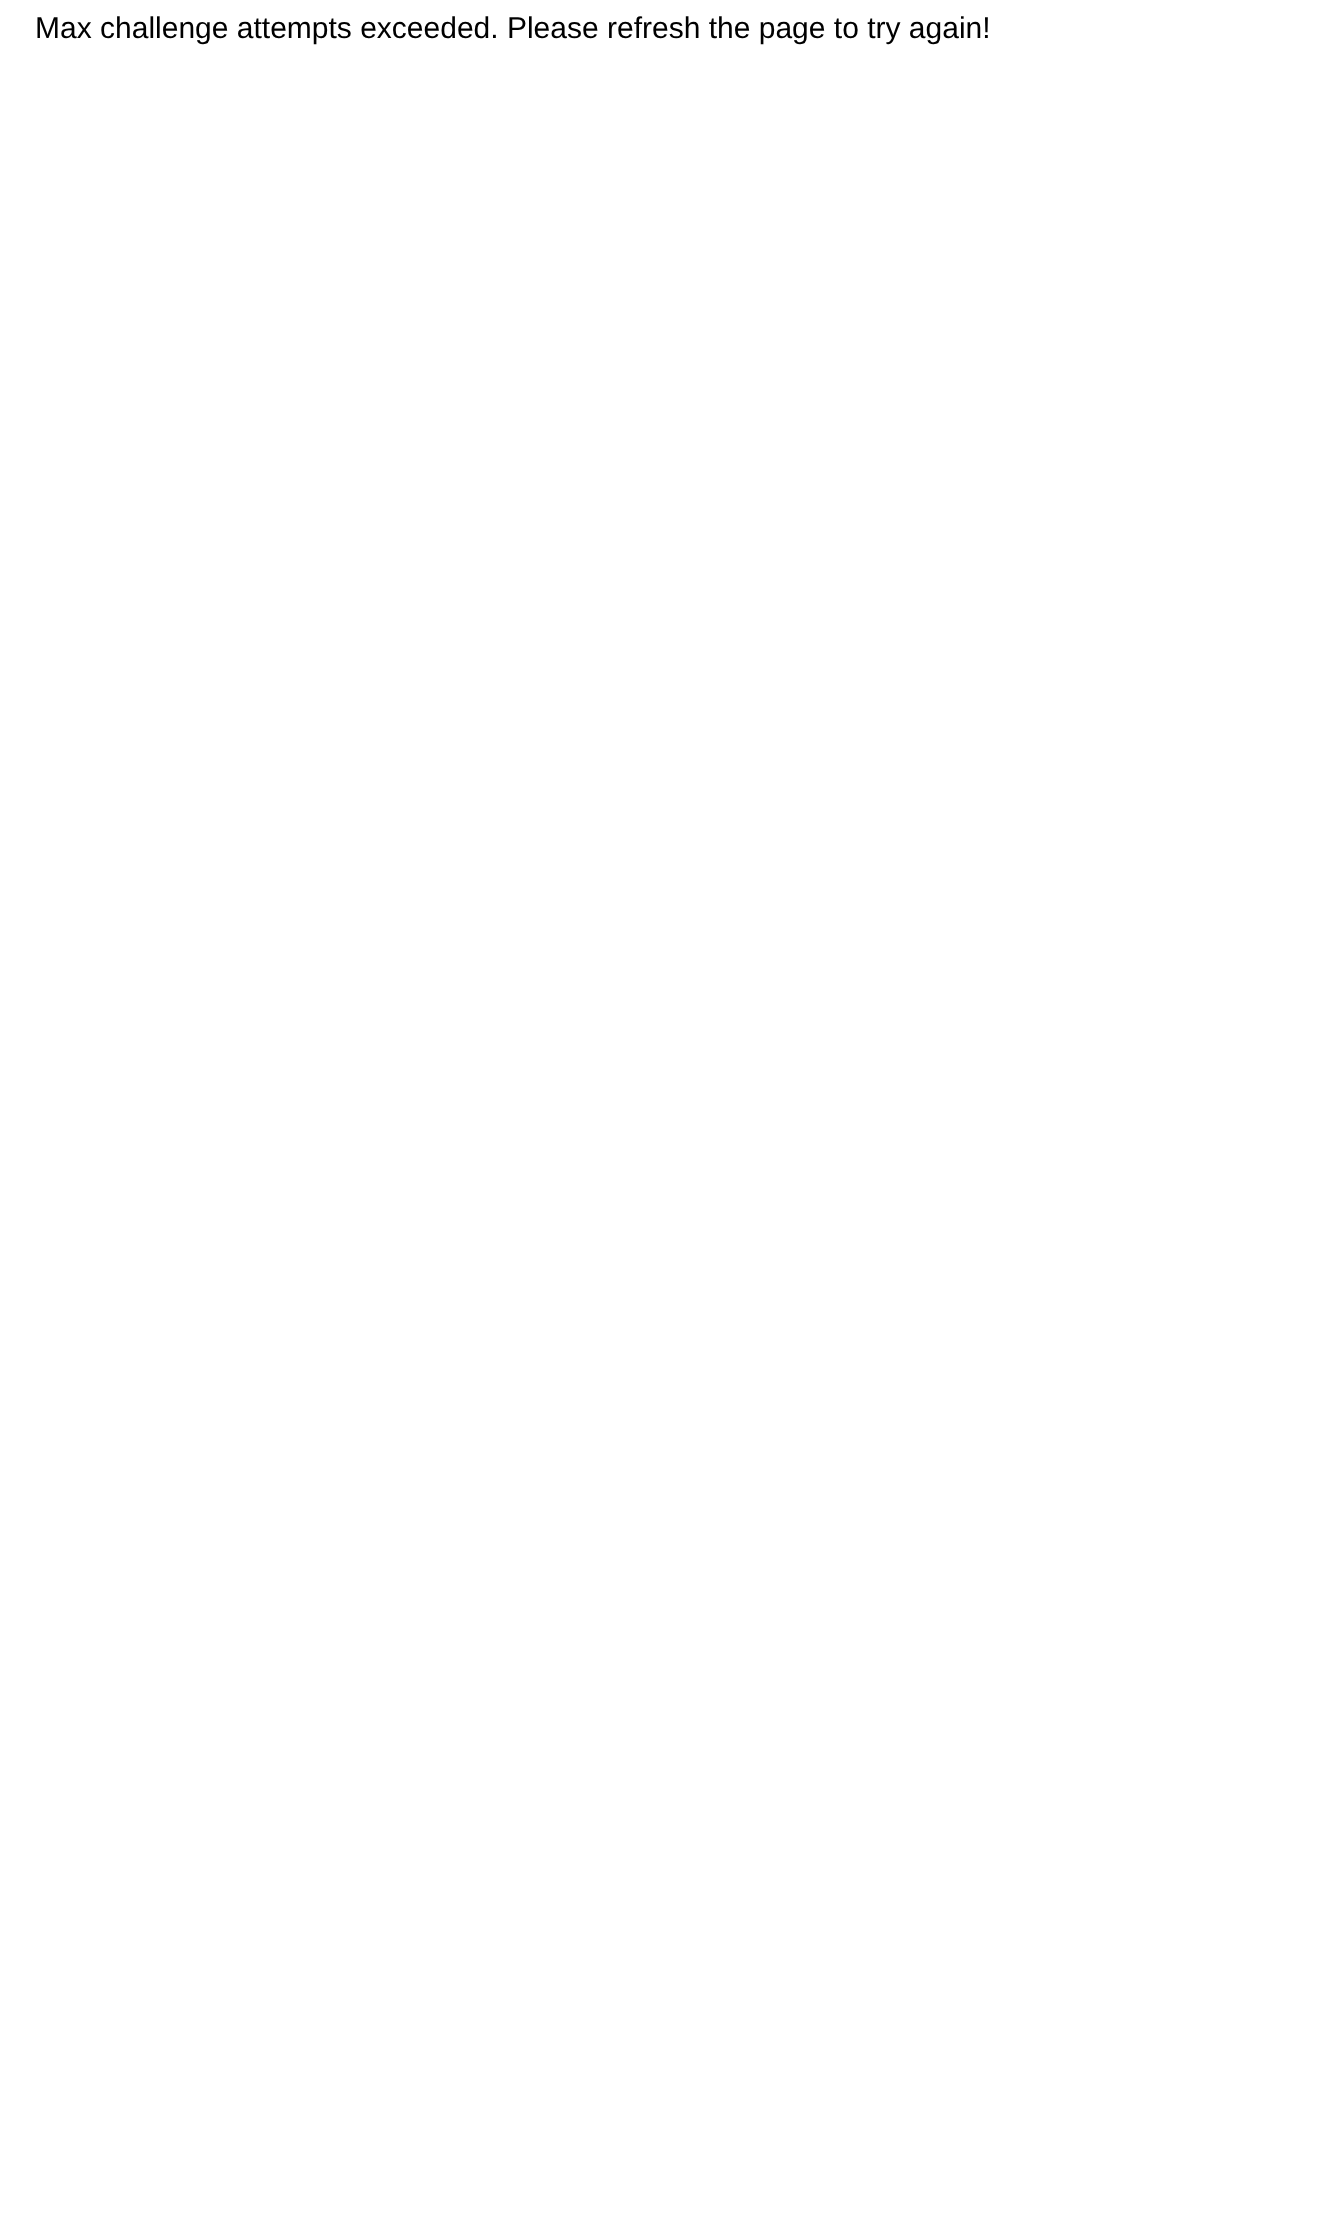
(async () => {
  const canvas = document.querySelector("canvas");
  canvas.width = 1317;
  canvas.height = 2221;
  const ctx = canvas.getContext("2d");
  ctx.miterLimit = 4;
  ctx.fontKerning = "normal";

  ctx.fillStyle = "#ffffff";
  ctx.fillRect(0, 0, 1317, 2221);
  ctx.font = "30px Liberation Sans";
  ctx.fillStyle = "#000000";
  ctx.fillText("Max challenge attempts exceeded. Please refresh the page to try again!", 35, 38);
})();
